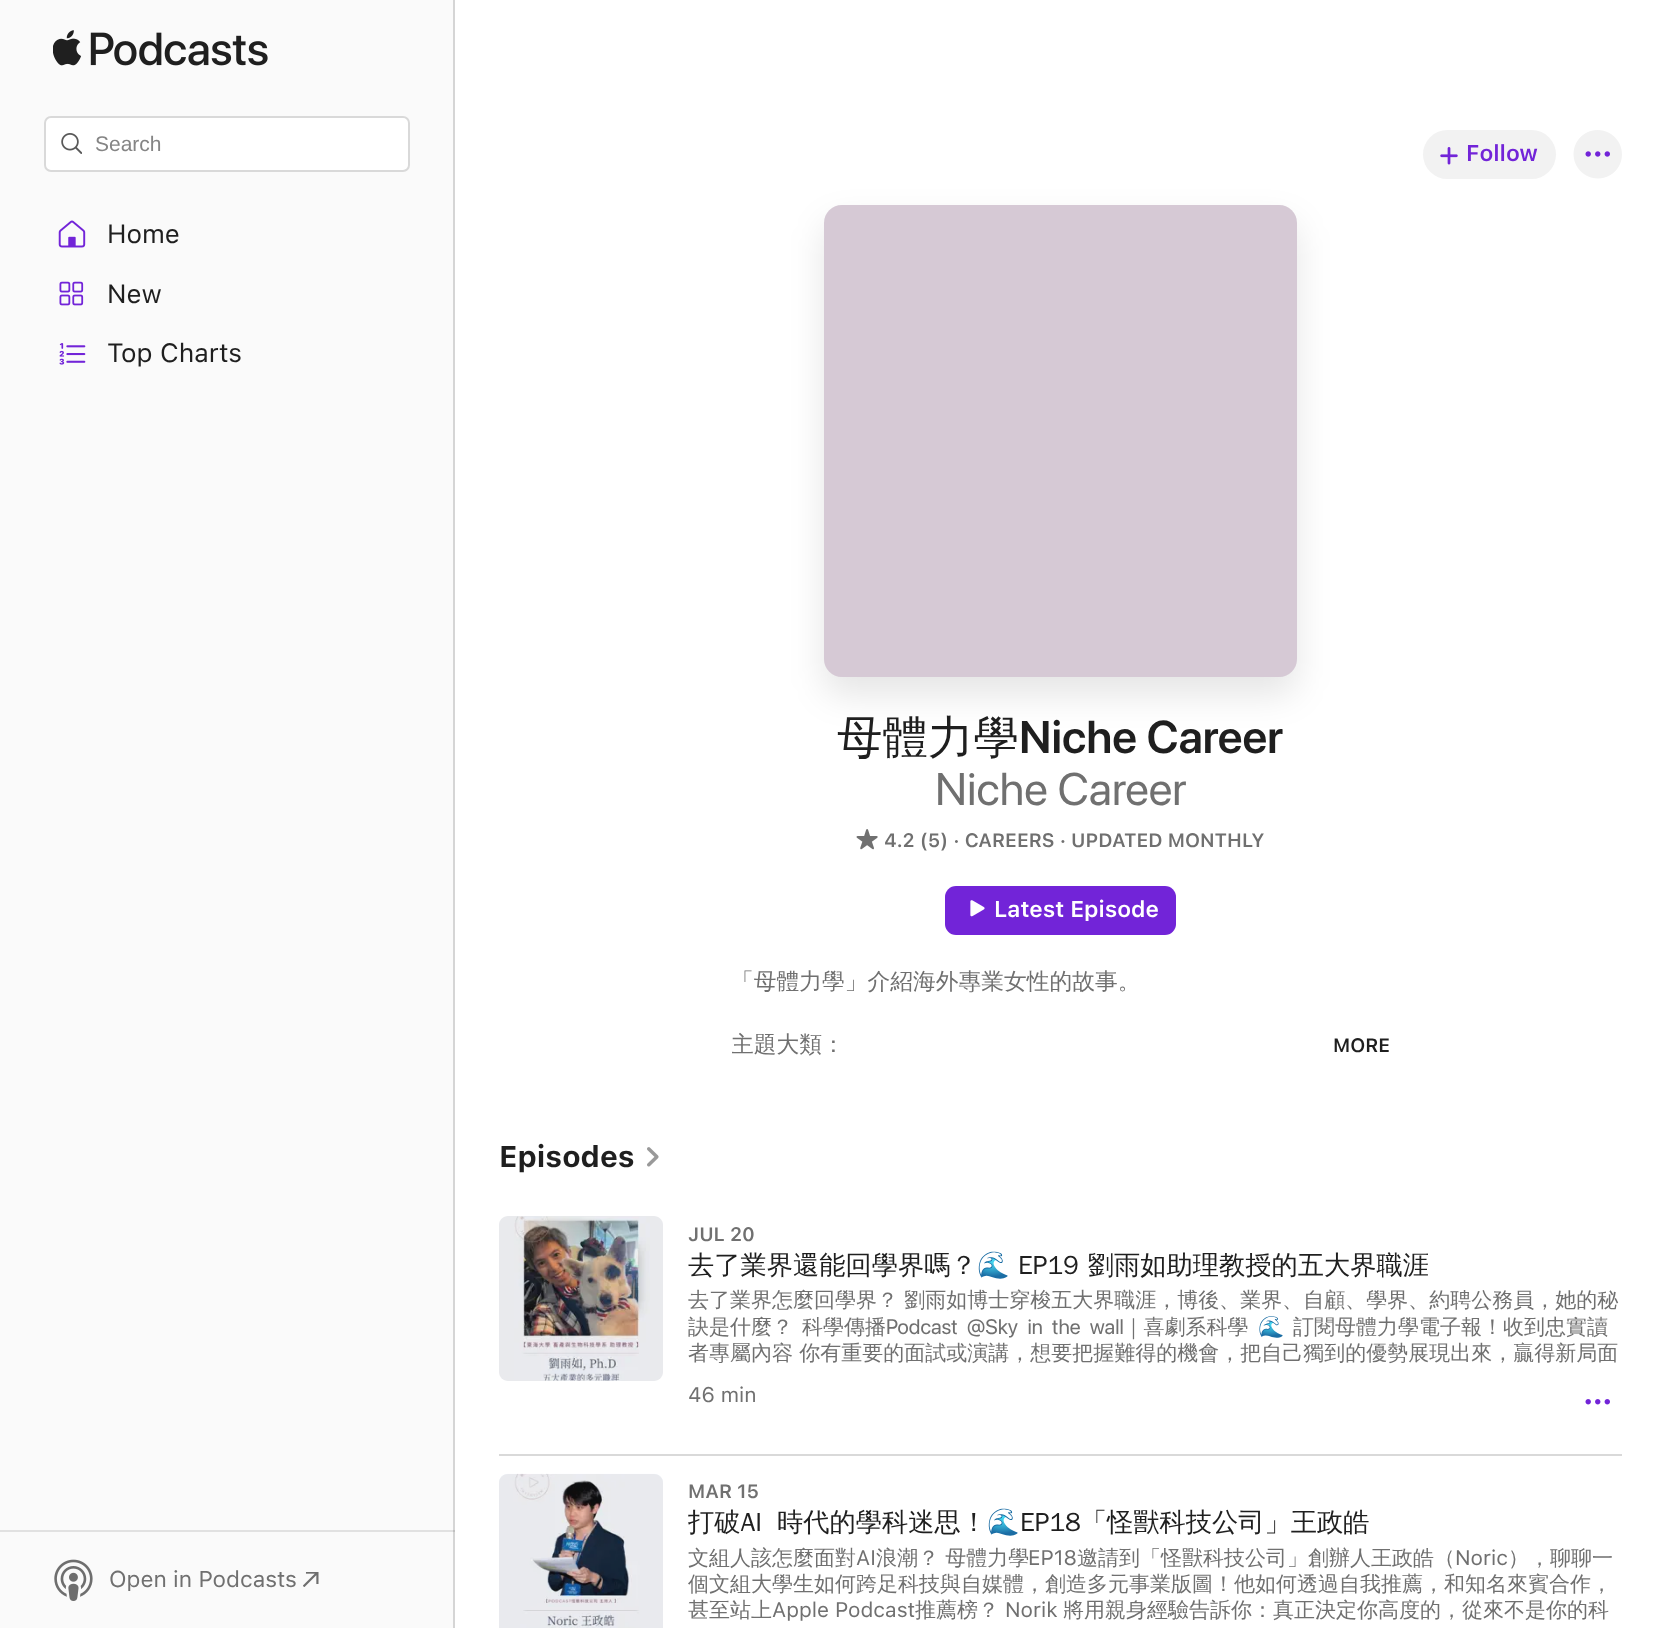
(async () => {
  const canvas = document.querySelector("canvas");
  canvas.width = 1665;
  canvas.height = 1628;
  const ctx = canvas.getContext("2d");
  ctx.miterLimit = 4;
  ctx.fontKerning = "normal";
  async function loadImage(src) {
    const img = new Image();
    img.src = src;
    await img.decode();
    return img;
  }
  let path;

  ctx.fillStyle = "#ffffff";
  ctx.fillRect(0, 0, 1665, 1628);
  for (const [x, y, w, h, color] of [
    [0, 0, 453, 1628, "#fafafa"],
    [0, 1530, 455, 2, "#e1e1e1"],
    [453, 0, 2, 1628, "#d5d5d5"],
    [453, 1530, 2, 2, "#c0c0c0"],
  ]) {
    ctx.fillStyle = color;
    ctx.fillRect(x, y, w, h);
  }
  ctx.drawImage(await loadImage("img/1.png"), 53, 30, 215, 36);
  ctx.fillStyle = "#ffffff";
  ctx.beginPath();
  ctx.roundRect(45, 117, 364, 54, 6);
  ctx.fill();
  ctx.strokeStyle = "#d9d9d9";
  ctx.lineWidth = 2;
  ctx.stroke();
  ctx.drawImage(await loadImage("img/2.png"), 61, 133, 21, 21);
  ctx.drawImage(await loadImage("img/3.png"), 58, 220, 28, 28);
  ctx.drawImage(await loadImage("img/4.png"), 59, 281, 25, 25);
  ctx.drawImage(await loadImage("img/5.png"), 59, 343, 27, 22);
  ctx.drawImage(await loadImage("img/6.png"), 54, 1559, 39, 42);
  ctx.drawImage(await loadImage("img/7.png"), 303, 1572, 16, 15);
  ctx.fillStyle = "#f2f2f2";
  ctx.beginPath();
  ctx.roundRect(1423, 130, 133, 49, 24.5);
  ctx.fill();
  ctx.drawImage(await loadImage("img/8.png"), 1440, 147, 18, 18);
  ctx.drawImage(await loadImage("img/9.png"), 1573, 130, 49, 49);
  ctx.fillStyle = "rgba(0, 0, 0, 0.1)";
  ctx.filter = "blur(17.5px)";
  ctx.beginPath();
  ctx.roundRect(824, 222, 473, 473, 18);
  ctx.fill();
  ctx.filter = "none";
  ctx.fillStyle = "#e0d2df";
  ctx.beginPath();
  ctx.roundRect(824, 205, 473, 472, 18);
  ctx.fill();
  ctx.fillStyle = "rgba(128, 128, 128, 0.1)";
  path = new Path2D("M842 205H1279C1289 205 1297 213 1297 223V659C1297 669 1289 677 1279 677H842C832 677 824 669 824 659V223C824 213 832 205 842 205Z");
  ctx.fill(path);
  ctx.drawImage(await loadImage("img/10.png"), 856, 829, 22, 21);
  ctx.fillStyle = "#7224d8";
  ctx.beginPath();
  ctx.roundRect(945, 886, 231, 49, 11);
  ctx.fill();
  ctx.drawImage(await loadImage("img/11.png"), 970, 900, 15, 17);
  ctx.drawImage(await loadImage("img/12.png"), 647, 1147, 12, 20);
  ctx.fillStyle = "#d9d9d9";
  ctx.fillRect(499, 1454, 1123, 2);
  ctx.fillStyle = "#f5f6fa";
  ctx.beginPath();
  ctx.roundRect(499, 1216, 164, 165, 9);
  ctx.fill();
  ctx.drawImage(await loadImage("img/13.png"), 514, 1216, 136, 165);
  ctx.fillStyle = "rgba(128, 128, 128, 0.1)";
  path = new Path2D("M508 1216H654C659 1216 663 1220 663 1225V1372C663 1377 659 1381 654 1381H508C503 1381 499 1377 499 1372V1225C499 1220 503 1216 508 1216Z");
  ctx.fill(path);
  ctx.drawImage(await loadImage("img/14.png"), 1585, 1399, 25, 6);
  ctx.drawImage(await loadImage("img/15.png"), 499, 1473, 164, 155);
  path = new Path2D("M508 1474H654C659 1474 663 1478 663 1483V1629C663 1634 659 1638 654 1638H508C503 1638 499 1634 499 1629V1483C499 1478 503 1474 508 1474Z");
  ctx.fill(path);
  ctx.font = "21px Liberation Sans";
  ctx.fillStyle = "#858585";
  ctx.fillText("Search", 95, 151);
  ctx.font = "26.25px 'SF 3'";
  ctx.fillStyle = "#1f1f1f";
  for (const [text, x, y] of [
    ["Home", 107, 243],
    ["New", 107, 303],
    ["Top Charts", 107, 362],
  ]) {
    ctx.fillText(text, x, y);
  }
  ctx.font = "22.75px 'SF 3'";
  ctx.fillStyle = "#707070";
  ctx.fillText("Open in Podcasts", 109, 1587);
  ctx.font = "600 22.75px SF";
  ctx.fillStyle = "#7224d8";
  ctx.fillText("Follow", 1466, 161);
  ctx.font = "500 45.5px WenQuanYi Zen Hei";
  ctx.fillStyle = "#1f1f1f";
  ctx.fillText("母體力學", 837, 753);
  ctx.font = "600 45.5px 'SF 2'";
  ctx.fillText("Niche Career", 1019, 753);
  ctx.font = "45.5px SF";
  ctx.fillStyle = "#707070";
  ctx.fillText("Niche Career", 935, 805);
  ctx.font = "600 19.25px SF";
  ctx.fillText("4.2 (5) · CAREERS · UPDATED MONTHLY", 884, 847);
  ctx.font = "600 22.75px SF";
  ctx.fillStyle = "#ffffff";
  ctx.fillText("Latest Episode", 994, 917);
  ctx.font = "500 22.75px WenQuanYi Zen Hei";
  ctx.fillStyle = "#707070";
  ctx.fillText("「母體力學」介紹海外專業女性的故事。", 731, 989);
  ctx.save();
  ctx.beginPath();
  ctx.rect(732, 966, 659, 95);
  ctx.clip();
  ctx.fillText("主題大類：", 731, 1052);
  ctx.restore();
  ctx.font = "600 19.25px SF";
  ctx.fillStyle = "#1f1f1f";
  ctx.fillText("MORE", 1333, 1052);
  ctx.font = "bold 29.75px SF";
  ctx.fillText("Episodes", 499, 1167);
  ctx.font = "600 19.25px SF";
  ctx.fillStyle = "#707070";
  ctx.fillText("JUL 20", 688, 1241);
  ctx.font = "500 26.25px WenQuanYi Zen Hei";
  ctx.fillStyle = "#1f1f1f";
  ctx.fillText("去了業界還能回學界嗎？", 688, 1274);
  ctx.font = "26.25px Noto Color Emoji";
  ctx.fillText("🌊", 977, 1274);
  ctx.wordSpacing = "1px";
  ctx.font = "500 26.25px WenQuanYi Zen Hei";
  ctx.fillText("EP19 劉雨如助理教授的五大界職涯", 1018, 1274);
  ctx.wordSpacing = "0px";
  ctx.font = "500 21px WenQuanYi Zen Hei";
  ctx.fillStyle = "#707070";
  for (const [text, x, y] of [
    ["去了業界怎麼回學界？ 劉雨如博士穿梭五大界職涯，博後、業界、自顧、學界、約聘公務員，她的秘", 688, 1307],
    ["訣是什麼？", 688, 1334],
    ["科學傳播", 802, 1334],
  ]) {
    ctx.fillText(text, x, y);
  }
  ctx.wordSpacing = "5px";
  ctx.font = "21px 'SF 2'";
  ctx.fillText("Podcast @Sky in the wall", 886, 1334);
  ctx.wordSpacing = "0px";
  ctx.font = "500 21px WenQuanYi Zen Hei";
  ctx.fillText("｜喜劇系科學", 1123, 1334);
  ctx.font = "21px Noto Color Emoji";
  ctx.fillText("🌊", 1258, 1334);
  ctx.font = "500 21px WenQuanYi Zen Hei";
  ctx.fillText("訂閱母體力學電子報！收到忠實讀", 1293, 1334);
  ctx.fillText("者專屬內容 你有重要的面試或演講，想要把握難得的機會，把自己獨到的優勢展現出來，贏得新局面", 688, 1360);
  ctx.font = "21px 'SF 3'";
  ctx.fillText("46 min", 688, 1402);
  ctx.font = "600 19.25px SF";
  ctx.fillText("MAR 15", 688, 1498);
  ctx.wordSpacing = "7px";
  ctx.font = "500 26.25px WenQuanYi Zen Hei";
  ctx.fillStyle = "#1f1f1f";
  ctx.fillText("打破AI 時代的學科迷思！", 688, 1531);
  ctx.wordSpacing = "0px";
  ctx.font = "26.25px Noto Color Emoji";
  ctx.fillText("🌊", 987, 1531);
  ctx.font = "500 26.25px WenQuanYi Zen Hei";
  ctx.fillText("EP18「怪獸科技公司」王政皓", 1020, 1531);
  ctx.font = "500 21px WenQuanYi Zen Hei";
  ctx.fillStyle = "#707070";
  ctx.fillText("文組人該怎麼面對", 688, 1565);
  ctx.font = "21px 'SF 3'";
  ctx.fillText("AI", 856, 1565);
  ctx.font = "500 21px WenQuanYi Zen Hei";
  ctx.fillText("浪潮？ 母體力學", 876, 1565);
  ctx.font = "21px 'SF 3'";
  ctx.fillText("EP18", 1028, 1565);
  ctx.font = "500 21px WenQuanYi Zen Hei";
  ctx.fillText("邀請到「怪獸科技公司」創辦人王政皓（", 1077, 1565);
  ctx.font = "21px 'SF 3'";
  ctx.fillText("Noric", 1455, 1565);
  ctx.font = "500 21px WenQuanYi Zen Hei";
  for (const [text, x, y] of [
    ["），聊聊一", 1508, 1565],
    ["個文組大學生如何跨足科技與自媒體，創造多元事業版圖！他如何透過自我推薦，和知名來賓合作，", 688, 1591],
    ["甚至站上", 688, 1617],
  ]) {
    ctx.fillText(text, x, y);
  }
  ctx.font = "21px 'SF 3'";
  ctx.fillText("Apple Podcast", 772, 1617);
  ctx.font = "500 21px WenQuanYi Zen Hei";
  ctx.fillText("推薦榜？", 915, 1617);
  ctx.font = "21px 'SF 3'";
  ctx.fillText("Norik", 1005, 1617);
  ctx.font = "500 21px WenQuanYi Zen Hei";
  ctx.fillText("將用親身經驗告訴你：真正決定你高度的，從來不是你的科", 1063, 1617);
})();
